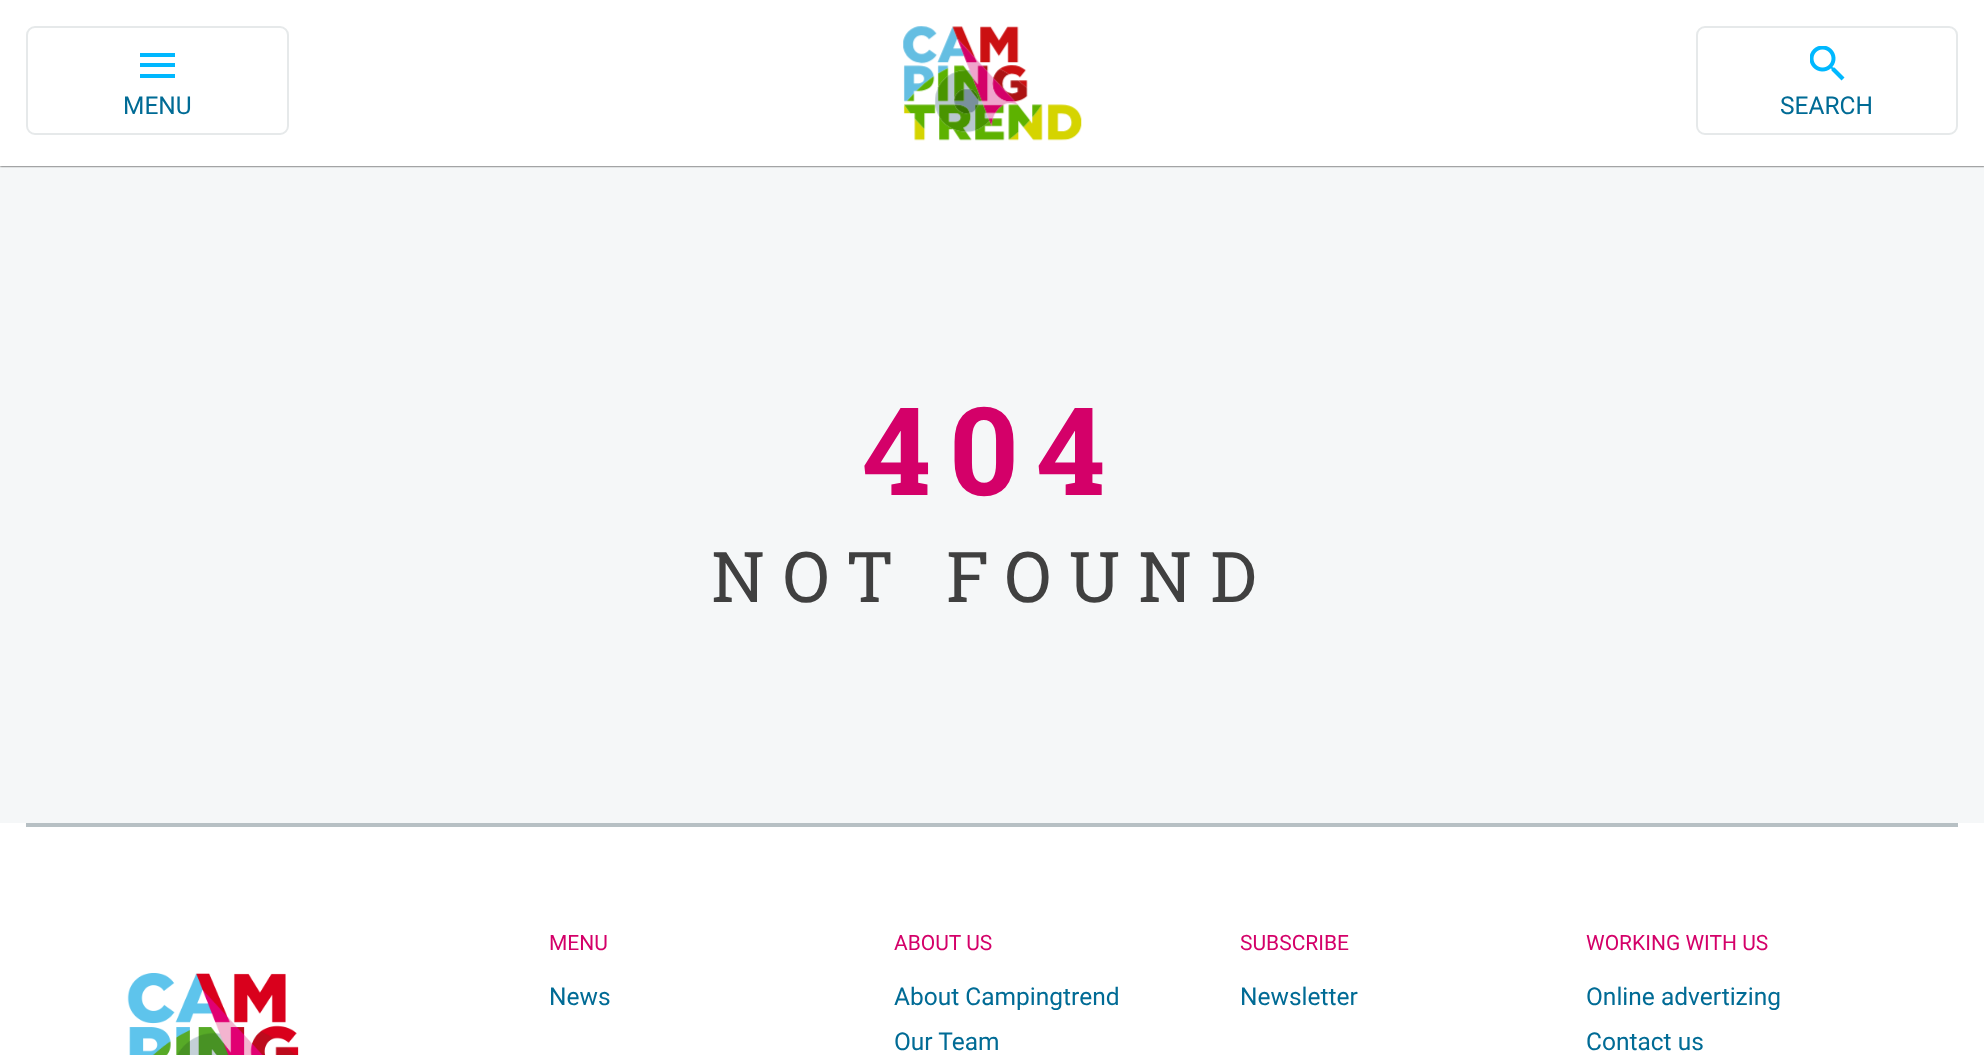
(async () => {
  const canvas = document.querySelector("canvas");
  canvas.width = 1984;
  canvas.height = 1055;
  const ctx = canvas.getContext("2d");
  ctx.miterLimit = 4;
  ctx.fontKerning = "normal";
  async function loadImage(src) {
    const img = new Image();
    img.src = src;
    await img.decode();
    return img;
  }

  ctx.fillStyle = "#ffffff";
  ctx.fillRect(0, 0, 1984, 1055);
  ctx.fillStyle = "#f5f7f8";
  ctx.fillRect(0, 166, 1984, 657);
  ctx.save();
  ctx.beginPath();
  ctx.rect(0, 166, 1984, 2);
  ctx.clip();
  ctx.fillStyle = "#000000";
  ctx.filter = "blur(1px)";
  ctx.beginPath();
  ctx.rect(0, 0, 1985, 166);
  ctx.fill();
  ctx.filter = "none";
  ctx.restore();
  ctx.beginPath();
  ctx.roundRect(27, 27, 261, 107, 8);
  ctx.strokeStyle = "#e6e9ea";
  ctx.lineWidth = 2;
  ctx.stroke();
  for (const [x, y, w, h, color] of [
    [140, 63, 35, 4, "#00b8ff"],
    [140, 53, 35, 4, "#00b8ff"],
    [140, 74, 35, 4, "#00b8ff"],
  ]) {
    ctx.fillStyle = color;
    ctx.fillRect(x, y, w, h);
  }
  ctx.drawImage(await loadImage("img/1.png"), 903, 26, 179, 115);
  ctx.beginPath();
  ctx.roundRect(1697, 27, 260, 107, 8);
  ctx.stroke();
  ctx.drawImage(await loadImage("img/2.png"), 1810, 46, 35, 35);
  ctx.fillStyle = "#b7c0c4";
  ctx.fillRect(26, 823, 1932, 4);
  ctx.drawImage(await loadImage("img/3.png"), 127, 973, 172, 82);
  ctx.font = "24.5px Roboto";
  ctx.fillStyle = "#006b95";
  ctx.fillText("MENU", 123, 114);
  ctx.fillText("SEARCH", 1780, 114);
  ctx.letterSpacing = "17.5px";
  ctx.font = "bold 122.5px Roboto Slab";
  ctx.fillStyle = "#d40069";
  ctx.fillText("404", 862, 495);
  ctx.font = "70px Roboto Slab";
  ctx.fillStyle = "#404040";
  ctx.fillText("NOT FOUND", 711, 602);
  ctx.letterSpacing = "0px";
  ctx.font = "21px Roboto";
  ctx.fillStyle = "#d40069";
  ctx.fillText("MENU", 549, 950);
  ctx.font = "24.5px Roboto";
  ctx.fillStyle = "#006b95";
  ctx.fillText("News", 549, 1005);
  ctx.font = "21px Roboto";
  ctx.fillStyle = "#d40069";
  ctx.fillText("ABOUT US", 894, 950);
  ctx.font = "24.5px Roboto";
  ctx.fillStyle = "#006b95";
  ctx.fillText("About Campingtrend", 894, 1005);
  ctx.fillText("Our Team", 894, 1050);
  ctx.font = "21px Roboto";
  ctx.fillStyle = "#d40069";
  ctx.fillText("SUBSCRIBE", 1240, 950);
  ctx.font = "24.5px Roboto";
  ctx.fillStyle = "#006b95";
  ctx.fillText("Newsletter", 1240, 1005);
  ctx.font = "21px Roboto";
  ctx.fillStyle = "#d40069";
  ctx.fillText("WORKING WITH US", 1586, 950);
  ctx.font = "24.5px Roboto";
  ctx.fillStyle = "#006b95";
  ctx.fillText("Online advertizing", 1586, 1005);
  ctx.fillText("Contact us", 1586, 1050);
})();
